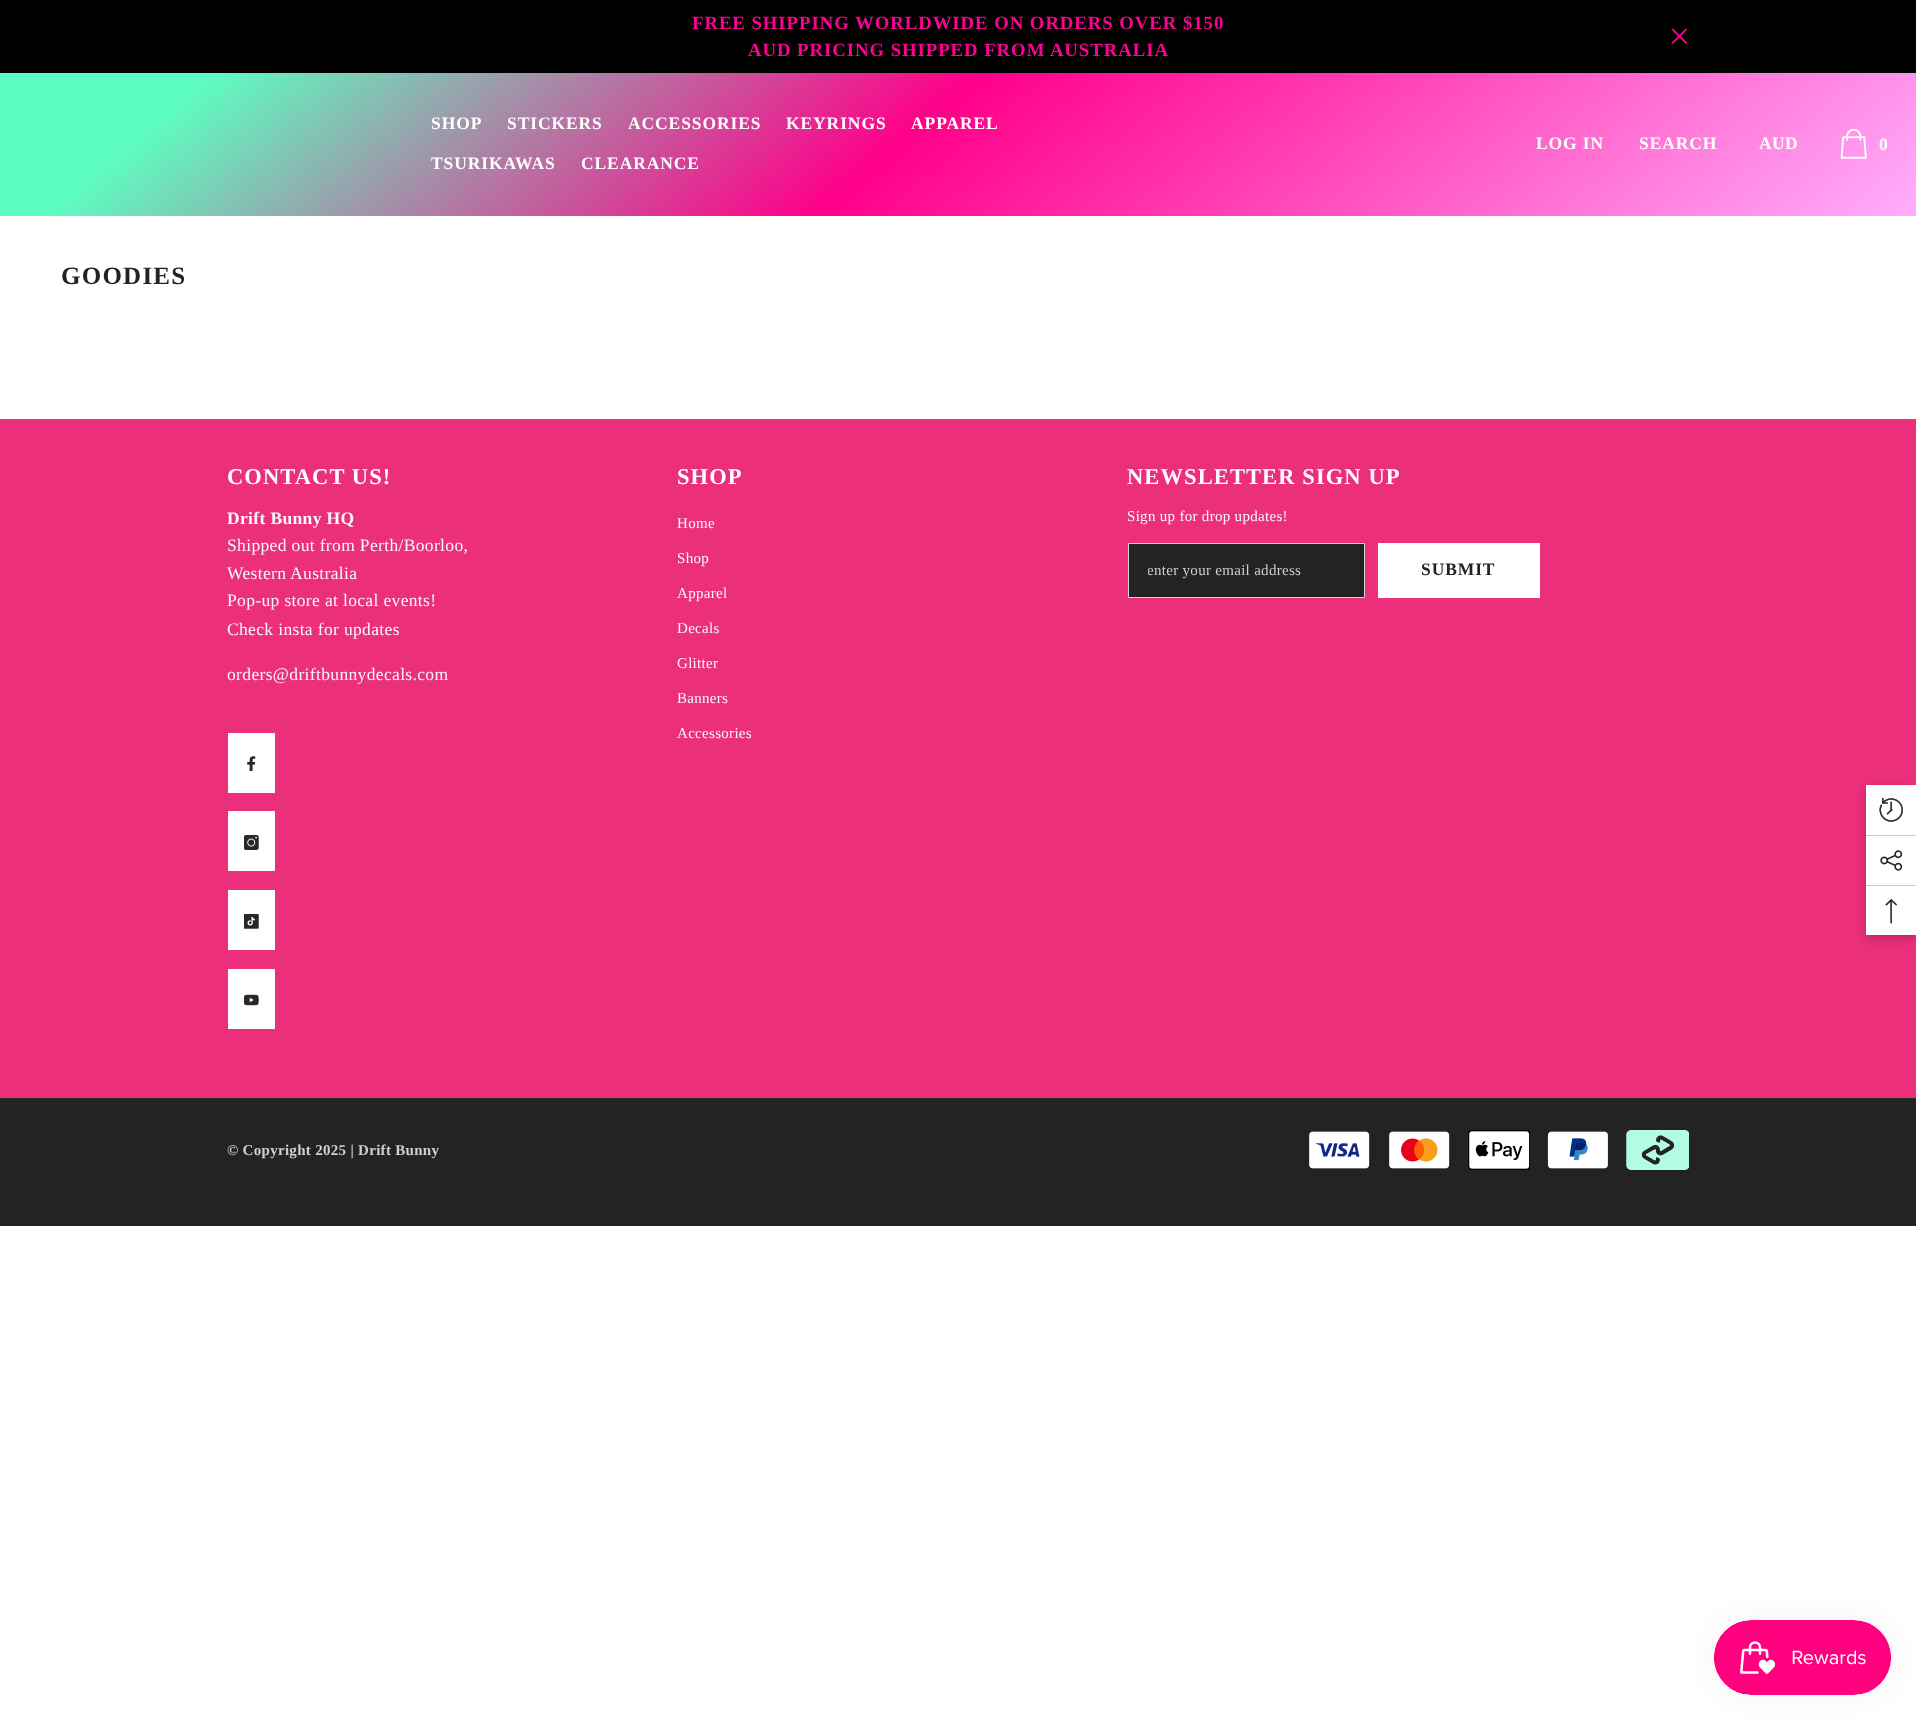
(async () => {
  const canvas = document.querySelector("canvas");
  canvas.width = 1916;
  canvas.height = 1720;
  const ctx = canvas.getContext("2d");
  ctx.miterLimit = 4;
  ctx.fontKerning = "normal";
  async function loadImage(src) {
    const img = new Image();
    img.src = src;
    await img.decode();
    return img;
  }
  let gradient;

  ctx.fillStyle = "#ffffff";
  ctx.fillRect(0, 0, 1916, 1720);
  ctx.fillStyle = "#000000";
  ctx.fillRect(0, 0, 1916, 73);
  ctx.drawImage(await loadImage("img/1.png"), 1671, 28, 16, 16);
  gradient = ctx.createLinearGradient(1389, 658, 527, -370);
  gradient.addColorStop(0, "#ffaefc");
  gradient.addColorStop(0.53, "#ff0089");
  gradient.addColorStop(0.9, "#5cffc1");
  ctx.fillStyle = gradient;
  ctx.fillRect(0, 73, 1916, 143);
  ctx.drawImage(await loadImage("img/2.png"), 1840, 129, 27, 30);
  ctx.fillStyle = "#eb2f7b";
  ctx.fillRect(0, 419, 1916, 679);
  ctx.fillStyle = "#ffffff";
  ctx.fillRect(228, 733, 47, 60);
  ctx.drawImage(await loadImage("img/3.png"), 247, 756, 9, 15);
  ctx.fillRect(228, 811, 47, 60);
  ctx.drawImage(await loadImage("img/4.png"), 244, 835, 15, 15);
  ctx.fillRect(228, 890, 47, 60);
  ctx.drawImage(await loadImage("img/5.png"), 244, 914, 15, 15);
  ctx.fillRect(228, 969, 47, 60);
  ctx.drawImage(await loadImage("img/6.png"), 244, 994, 15, 12);
  ctx.fillStyle = "#232323";
  ctx.beginPath();
  ctx.rect(1128.5, 543.5, 236, 54);
  ctx.fill();
  ctx.strokeStyle = "#d3d3d3";
  ctx.stroke();
  for (const [x, y, w, h, color] of [
    [1378, 543, 162, 55, "#ffffff"],
    [0, 1099, 1916, 127, "#232323"],
    [0, 1098, 1916, 1, "#282828"],
  ]) {
    ctx.fillStyle = color;
    ctx.fillRect(x, y, w, h);
  }
  ctx.drawImage(await loadImage("img/7.png"), 1309, 1131, 61, 38);
  ctx.drawImage(await loadImage("img/8.png"), 1389, 1131, 61, 38);
  ctx.drawImage(await loadImage("img/9.png"), 1468, 1130, 62, 40);
  ctx.drawImage(await loadImage("img/10.png"), 1547, 1131, 61, 38);
  ctx.drawImage(await loadImage("img/11.png"), 1626, 1130, 63, 40);
  ctx.fillStyle = "rgba(0, 0, 0, 0.2)";
  ctx.filter = "blur(4.5px)";
  ctx.beginPath();
  ctx.rect(1866, 789, 50, 150);
  ctx.fill();
  ctx.filter = "none";
  ctx.fillStyle = "#ffffff";
  ctx.fillRect(1866, 785, 50, 150);
  ctx.drawImage(await loadImage("img/12.png"), 1879, 798, 24, 24);
  ctx.fillStyle = "#cccccc";
  ctx.fillRect(1866, 835, 50, 1);
  ctx.drawImage(await loadImage("img/13.png"), 1880, 850, 23, 21);
  ctx.fillRect(1866, 885, 50, 1);
  ctx.drawImage(await loadImage("img/14.png"), 1885, 899, 12, 25);
  ctx.fillStyle = "rgba(0, 0, 0, 0.05)";
  ctx.filter = "blur(15.5px)";
  ctx.beginPath();
  ctx.roundRect(1714, 1620, 177, 75, 37.5);
  ctx.fill();
  ctx.filter = "none";
  ctx.drawImage(await loadImage("img/15.png"), 1714, 1620, 177, 75);
  ctx.letterSpacing = "0.95px";
  ctx.font = "bold 18.75px Liberation Serif";
  ctx.fillStyle = "#ff0094";
  ctx.fillText("FREE SHIPPING WORLDWIDE ON ORDERS OVER $150", 692, 29);
  ctx.fillText("AUD PRICING SHIPPED FROM AUSTRALIA", 748, 56);
  ctx.letterSpacing = "0.9px";
  ctx.font = "bold 17.5px Liberation Serif";
  ctx.fillStyle = "#ffffff";
  for (const [text, x, y] of [
    ["SHOP", 431, 129],
    ["STICKERS", 507, 129],
    ["ACCESSORIES", 628, 129],
    ["KEYRINGS", 786, 129],
    ["APPAREL", 911, 129],
    ["TSURIKAWAS", 431, 169],
    ["CLEARANCE", 581, 169],
    ["LOG IN", 1536, 149],
    ["SEARCH", 1639, 149],
  ]) {
    ctx.fillText(text, x, y);
  }
  ctx.letterSpacing = "0.35px";
  ctx.fillText("AUD", 1759, 149);
  ctx.letterSpacing = "0.9px";
  ctx.fillText("0", 1879, 150);
  ctx.letterSpacing = "1.25px";
  ctx.font = "bold 25px Liberation Serif";
  ctx.fillStyle = "#232323";
  ctx.fillText("GOODIES", 61, 284);
  ctx.letterSpacing = "1.1px";
  ctx.font = "bold 22.5px Liberation Serif";
  ctx.fillStyle = "#ffffff";
  ctx.fillText("CONTACT US!", 227, 484);
  ctx.letterSpacing = "0.35px";
  ctx.font = "bold 17.5px Liberation Serif";
  ctx.fillStyle = "#f8f8f8";
  ctx.fillText("Drift Bunny HQ", 227, 524);
  ctx.font = "17.5px Liberation Serif";
  for (const [text, x, y] of [
    ["Shipped out from Perth/Boorloo,", 227, 551],
    ["Western Australia", 227, 579],
    ["Pop-up store at local events!", 227, 606],
    ["Check insta for updates", 227, 635],
    ["orders@driftbunnydecals.com", 227, 680],
  ]) {
    ctx.fillText(text, x, y);
  }
  ctx.letterSpacing = "1.1px";
  ctx.font = "bold 22.5px Liberation Serif";
  ctx.fillStyle = "#ffffff";
  ctx.fillText("SHOP", 677, 484);
  ctx.letterSpacing = "0.3px";
  ctx.font = "15px Liberation Serif";
  ctx.fillStyle = "#f8f8f8";
  for (const [text, x, y] of [
    ["Home", 677, 528],
    ["Shop", 677, 563],
    ["Apparel", 677, 598],
    ["Decals", 677, 633],
    ["Glitter", 677, 668],
    ["Banners", 677, 703],
    ["Accessories", 677, 738],
  ]) {
    ctx.fillText(text, x, y);
  }
  ctx.letterSpacing = "1.1px";
  ctx.font = "bold 22.5px Liberation Serif";
  ctx.fillStyle = "#ffffff";
  ctx.fillText("NEWSLETTER SIGN UP", 1127, 484);
  ctx.letterSpacing = "0.3px";
  ctx.font = "15px Liberation Serif";
  ctx.fillStyle = "#f8f8f8";
  ctx.fillText("Sign up for drop updates!", 1127, 521);
  ctx.save();
  ctx.beginPath();
  ctx.rect(1148, 561, 197, 19);
  ctx.clip();
  ctx.fillStyle = "#cfcfcf";
  ctx.fillText("enter your email address", 1147, 575);
  ctx.restore();
  ctx.letterSpacing = "0.9px";
  ctx.font = "bold 17.5px Liberation Serif";
  ctx.fillStyle = "#232323";
  ctx.fillText("SUBMIT", 1421, 575);
  ctx.letterSpacing = "0.3px";
  ctx.font = "bold 15px Liberation Serif";
  ctx.fillStyle = "#cfcfcf";
  ctx.fillText("© Copyright 2025 | Drift Bunny", 227, 1155);
})();
